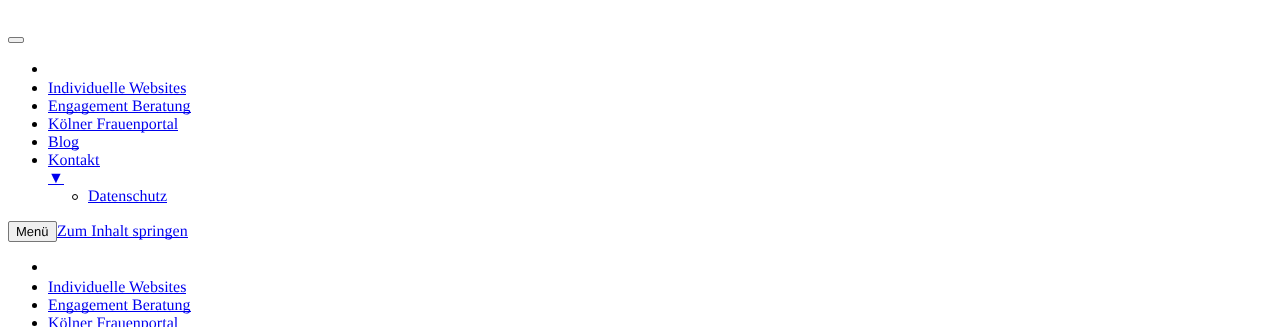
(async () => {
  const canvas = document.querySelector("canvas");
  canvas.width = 1285;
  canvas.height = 327;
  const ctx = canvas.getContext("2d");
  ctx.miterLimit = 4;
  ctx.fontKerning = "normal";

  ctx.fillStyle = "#ffffff";
  ctx.fillRect(0, 0, 1285, 327);
  ctx.fillStyle = "#efefef";
  ctx.beginPath();
  ctx.roundRect(8.5, 37.5, 15, 5, 1.5);
  ctx.fill();
  ctx.strokeStyle = "#767676";
  ctx.stroke();
  ctx.fillStyle = "#000000";
  ctx.beginPath();
  ctx.arc(34.5, 69.5, 2.5, 0, Math.PI * 2);
  ctx.fill();
  ctx.beginPath();
  ctx.arc(34.5, 88.5, 2.5, 0, Math.PI * 2);
  ctx.fill();
  ctx.fillStyle = "#0000ee";
  ctx.fillRect(48, 94, 138, 1);
  ctx.fillStyle = "#000000";
  ctx.beginPath();
  ctx.arc(34.5, 106.5, 2.5, 0, Math.PI * 2);
  ctx.fill();
  ctx.fillStyle = "#0000ee";
  ctx.fillRect(48, 112, 143, 1);
  ctx.fillStyle = "#000000";
  ctx.beginPath();
  ctx.arc(34.5, 124.5, 2.5, 0, Math.PI * 2);
  ctx.fill();
  ctx.fillStyle = "#0000ee";
  ctx.fillRect(48, 130, 130, 1);
  ctx.fillStyle = "#000000";
  ctx.beginPath();
  ctx.arc(34.5, 142.5, 2.5, 0, Math.PI * 2);
  ctx.fill();
  ctx.fillStyle = "#0000ee";
  ctx.fillRect(48, 148, 31, 1);
  ctx.fillStyle = "#000000";
  ctx.beginPath();
  ctx.arc(34.5, 160.5, 2.5, 0, Math.PI * 2);
  ctx.fill();
  ctx.fillStyle = "#0000ee";
  ctx.fillRect(48, 166, 52, 1);
  ctx.fillRect(48, 184, 16, 1);
  ctx.beginPath();
  ctx.arc(75, 197, 2.5, 0, Math.PI * 2);
  ctx.strokeStyle = "#000000";
  ctx.stroke();
  ctx.fillRect(88, 202, 79, 1);
  ctx.fillStyle = "#efefef";
  ctx.beginPath();
  ctx.roundRect(8.5, 221.5, 48, 20, 1.5);
  ctx.fill();
  ctx.strokeStyle = "#767676";
  ctx.stroke();
  ctx.fillStyle = "#0000ee";
  ctx.fillRect(57, 237, 131, 1);
  ctx.fillStyle = "#000000";
  ctx.beginPath();
  ctx.arc(34.5, 267.5, 2.5, 0, Math.PI * 2);
  ctx.fill();
  ctx.beginPath();
  ctx.arc(34.5, 287.5, 2.5, 0, Math.PI * 2);
  ctx.fill();
  ctx.fillStyle = "#0000ee";
  ctx.fillRect(48, 293, 138, 1);
  ctx.fillStyle = "#000000";
  ctx.beginPath();
  ctx.arc(34.5, 305.5, 2.5, 0, Math.PI * 2);
  ctx.fill();
  ctx.fillStyle = "#0000ee";
  ctx.fillRect(48, 311, 143, 1);
  ctx.fillStyle = "#000000";
  ctx.beginPath();
  ctx.arc(34.5, 323.5, 2.5, 0, Math.PI * 2);
  ctx.fill();
  ctx.font = "16px Liberation Serif";
  ctx.fillStyle = "#0000ee";
  for (const [text, x, y] of [
    ["Individuelle Websites", 48, 93],
    ["Engagement Beratung", 48, 111],
    ["Kölner Frauenportal", 48, 129],
    ["Blog", 48, 147],
    ["Kontakt", 48, 165],
    ["▼", 48, 183],
    ["Datenschutz", 88, 201],
  ]) {
    ctx.fillText(text, x, y);
  }
  ctx.font = "13px Liberation Sans";
  ctx.fillStyle = "#000000";
  ctx.fillText("Menü", 16, 236);
  ctx.font = "16px Liberation Serif";
  ctx.fillStyle = "#0000ee";
  for (const [text, x, y] of [
    ["Zum Inhalt springen", 57, 236],
    ["Individuelle Websites", 48, 292],
    ["Engagement Beratung", 48, 310],
    ["Kölner Frauenportal", 48, 328],
  ]) {
    ctx.fillText(text, x, y);
  }
})();
